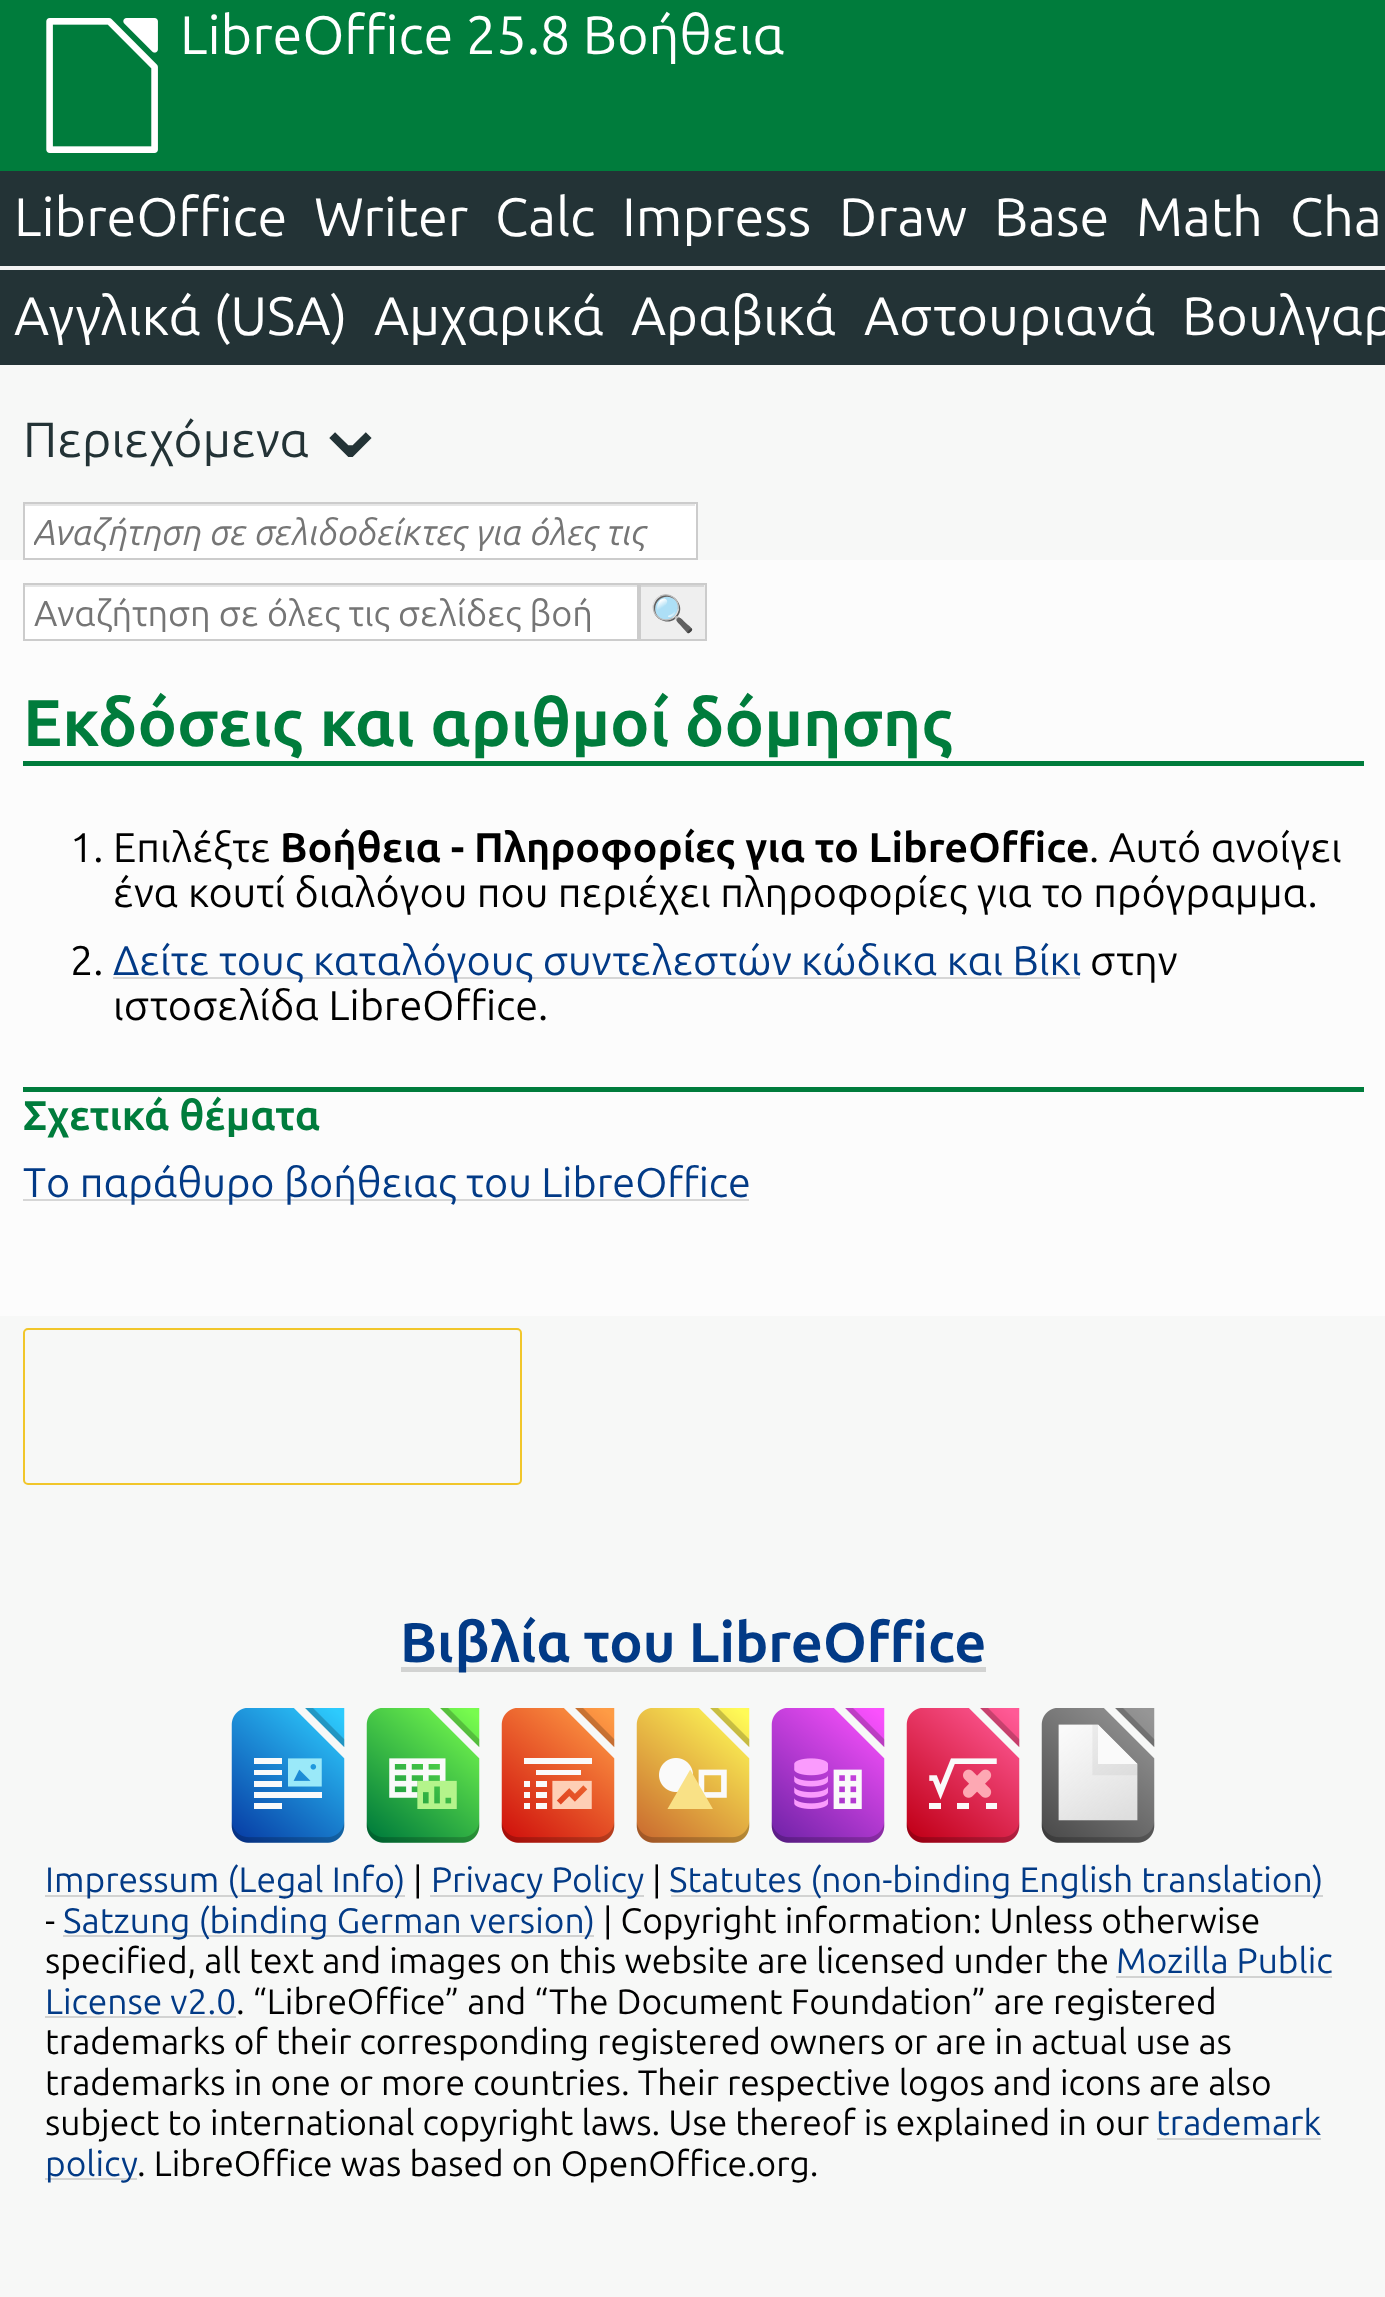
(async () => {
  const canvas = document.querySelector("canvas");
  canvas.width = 1385;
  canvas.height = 2297;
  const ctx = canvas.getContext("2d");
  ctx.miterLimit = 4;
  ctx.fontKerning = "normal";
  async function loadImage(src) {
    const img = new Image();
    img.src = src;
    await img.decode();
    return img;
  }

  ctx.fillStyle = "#f7f8f7";
  ctx.fillRect(0, 0, 1385, 2297);
  ctx.fillStyle = "#007c3c";
  ctx.fillRect(0, 0, 1385, 171);
  ctx.drawImage(await loadImage("img/1.png"), 46, 18, 112, 135);
  for (const [x, y, w, h, color] of [
    [0, 171, 1385, 95, "#233336"],
    [0, 266, 1385, 4, "#f3f3f3"],
    [0, 270, 1385, 95, "#233336"],
    [25, 504, 671, 54, "#ffffff"],
    [25, 504, 670, 2, "#e6e6e6"],
  ]) {
    ctx.fillStyle = color;
    ctx.fillRect(x, y, w, h);
  }
  ctx.strokeStyle = "#cccccc";
  ctx.lineWidth = 2;
  ctx.strokeRect(24, 503, 673, 56);
  for (const [x, y, w, h, color] of [
    [0, 560, 1385, 756, "#fcfcfc"],
    [25, 587, 612, 52, "#ffffff"],
    [25, 585, 612, 2, "#e6e6e6"],
  ]) {
    ctx.fillStyle = color;
    ctx.fillRect(x, y, w, h);
  }
  ctx.strokeRect(24, 584, 614, 56);
  ctx.fillStyle = "#efefef";
  ctx.fillRect(641, 585, 64, 54);
  ctx.fillStyle = "#d7d7d7";
  ctx.fillRect(641, 585, 63, 2);
  ctx.strokeRect(640, 584, 66, 56);
  for (const [x, y, w, h, color] of [
    [23, 761, 1341, 5, "#007c3c"],
    [113, 977, 967, 2, "#d6d6d6"],
    [23, 1087, 1341, 5, "#007c3c"],
    [23, 1199, 726, 2, "#d6d6d6"],
  ]) {
    ctx.fillStyle = color;
    ctx.fillRect(x, y, w, h);
  }
  ctx.beginPath();
  ctx.roundRect(24, 1329, 497, 155, 4);
  ctx.strokeStyle = "#f1c62a";
  ctx.stroke();
  ctx.fillStyle = "#d2d3d2";
  ctx.fillRect(401, 1667, 585, 5);
  ctx.drawImage(await loadImage("img/2.png"), 231, 1708, 114, 135);
  ctx.drawImage(await loadImage("img/3.png"), 366, 1708, 114, 135);
  ctx.drawImage(await loadImage("img/4.png"), 501, 1708, 114, 135);
  ctx.drawImage(await loadImage("img/5.png"), 636, 1708, 114, 135);
  ctx.drawImage(await loadImage("img/6.png"), 771, 1708, 114, 135);
  ctx.drawImage(await loadImage("img/7.png"), 906, 1708, 114, 135);
  ctx.drawImage(await loadImage("img/8.png"), 1041, 1708, 114, 135);
  for (const [x, y, w, h, color] of [
    [45, 1895, 360, 2, "#d2d3d2"],
    [430, 1895, 214, 2, "#d2d3d2"],
    [671, 1895, 652, 2, "#d2d3d2"],
    [63, 1935, 531, 2, "#d2d3d2"],
    [1116, 1976, 216, 2, "#d2d3d2"],
    [45, 2016, 191, 2, "#d2d3d2"],
    [1157, 2138, 164, 2, "#d2d3d2"],
    [45, 2178, 92, 2, "#d2d3d2"],
  ]) {
    ctx.fillStyle = color;
    ctx.fillRect(x, y, w, h);
  }
  ctx.font = "54px Ubuntu";
  ctx.fillStyle = "#ffffff";
  for (const [text, x, y] of [
    ["LibreOffice 25.8 Βοήθεια", 180, 54],
    ["LibreOffice", 14, 236],
    ["Writer", 314, 236],
    ["Calc", 495, 236],
    ["Impress", 622, 236],
    ["Draw", 839, 236],
    ["Base", 994, 236],
    ["Math", 1136, 236],
    ["Cha", 1290, 236],
    ["Αγγλικά (USA)", 14, 335],
    ["Αμχαρικά", 374, 335],
    ["Αραβικά", 631, 335],
    ["Αστουριανά", 864, 335],
    ["Βουλγαρ", 1182, 335],
  ]) {
    ctx.fillText(text, x, y);
  }
  ctx.font = "49.5px Ubuntu";
  ctx.fillStyle = "#233336";
  ctx.fillText("Περιεχόμενα", 23, 457);
  ctx.font = "99px DejaVu Sans";
  ctx.fillText("⌄", 309, 457);
  ctx.save();
  ctx.beginPath();
  ctx.rect(34, 511, 619, 40);
  ctx.clip();
  ctx.font = "italic 36px Ubuntu";
  ctx.fillStyle = "#757575";
  ctx.fillText("Αναζήτηση σε σελιδοδείκτες για όλες τις", 34, 545);
  ctx.restore();
  ctx.save();
  ctx.beginPath();
  ctx.rect(34, 592, 560, 40);
  ctx.clip();
  ctx.font = "36px Ubuntu";
  ctx.fillStyle = "#757575";
  ctx.fillText("Αναζήτηση σε όλες τις σελίδες βοή", 34, 626);
  ctx.restore();
  ctx.font = "36px Noto Color Emoji";
  ctx.fillStyle = "#000000";
  ctx.fillText("🔍", 650, 626);
  ctx.font = "bold 65.9px Ubuntu";
  ctx.fillStyle = "#007c3c";
  ctx.fillText("Εκδόσεις και αριθμοί δόμησης", 23, 746);
  ctx.font = "bold 41.4px Ubuntu";
  ctx.fillStyle = "#000000";
  ctx.fillText("Βοήθεια - Πληροφορίες για το LibreOffice", 280, 862);
  ctx.font = "41.4px Ubuntu";
  for (const [text, x, y] of [
    [". Αυτό ανοίγει", 1089, 862],
    ["ένα κουτί διαλόγου που περιέχει πληροφορίες για το πρόγραμμα.", 113, 907],
    ["1. Επιλέξτε", 70, 862],
    ["2.", 70, 975],
  ]) {
    ctx.fillText(text, x, y);
  }
  ctx.fillStyle = "#023a86";
  ctx.fillText("Δείτε τους καταλόγους συντελεστών κώδικα και Βίκι", 113, 975);
  ctx.fillStyle = "#000000";
  ctx.fillText("στην", 1090, 975);
  ctx.fillText("ιστοσελίδα LibreOffice.", 113, 1020);
  ctx.font = "bold 41.4px Ubuntu";
  ctx.fillStyle = "#007c3c";
  ctx.fillText("Σχετικά θέματα", 23, 1130);
  ctx.font = "41.4px Ubuntu";
  ctx.fillStyle = "#023a86";
  ctx.fillText("Tο παράθυρο βοήθειας του LibreOffice", 23, 1197);
  ctx.font = "bold 55.75px Ubuntu";
  ctx.fillText("Βιβλία του LibreOffice", 400, 1662);
  ctx.font = "35.3px Ubuntu";
  ctx.fillText("Impressum (Legal Info)", 45, 1892);
  ctx.fillStyle = "#000000";
  ctx.fillText("|", 413, 1892);
  ctx.fillStyle = "#023a86";
  ctx.fillText("Privacy Policy", 431, 1892);
  ctx.fillStyle = "#000000";
  ctx.fillText("|", 652, 1892);
  ctx.fillStyle = "#023a86";
  ctx.fillText("Statutes (non-binding English translation)", 669, 1892);
  ctx.fillStyle = "#000000";
  ctx.fillText("-", 45, 1933);
  ctx.fillStyle = "#023a86";
  ctx.fillText("Satzung (binding German version)", 63, 1933);
  ctx.fillStyle = "#000000";
  ctx.fillText("| Copyright information: Unless otherwise", 603, 1933);
  ctx.fillText("specified, all text and images on this website are licensed under the", 45, 1973);
  ctx.fillStyle = "#023a86";
  ctx.fillText("Mozilla Public", 1116, 1973);
  ctx.fillText("License v2.0", 45, 2014);
  ctx.fillStyle = "#000000";
  for (const [text, x, y] of [
    [". “LibreOffice” and “The Document Foundation” are registered", 236, 2014],
    ["trademarks of their corresponding registered owners or are in actual use as", 45, 2054],
    ["trademarks in one or more countries. Their respective logos and icons are also", 45, 2095],
    ["subject to international copyright laws. Use thereof is explained in our", 45, 2135],
  ]) {
    ctx.fillText(text, x, y);
  }
  ctx.fillStyle = "#023a86";
  ctx.fillText("trademark", 1156, 2135);
  ctx.fillText("policy", 45, 2176);
  ctx.fillStyle = "#000000";
  ctx.fillText(". LibreOffice was based on OpenOffice.org.", 137, 2176);
})();
